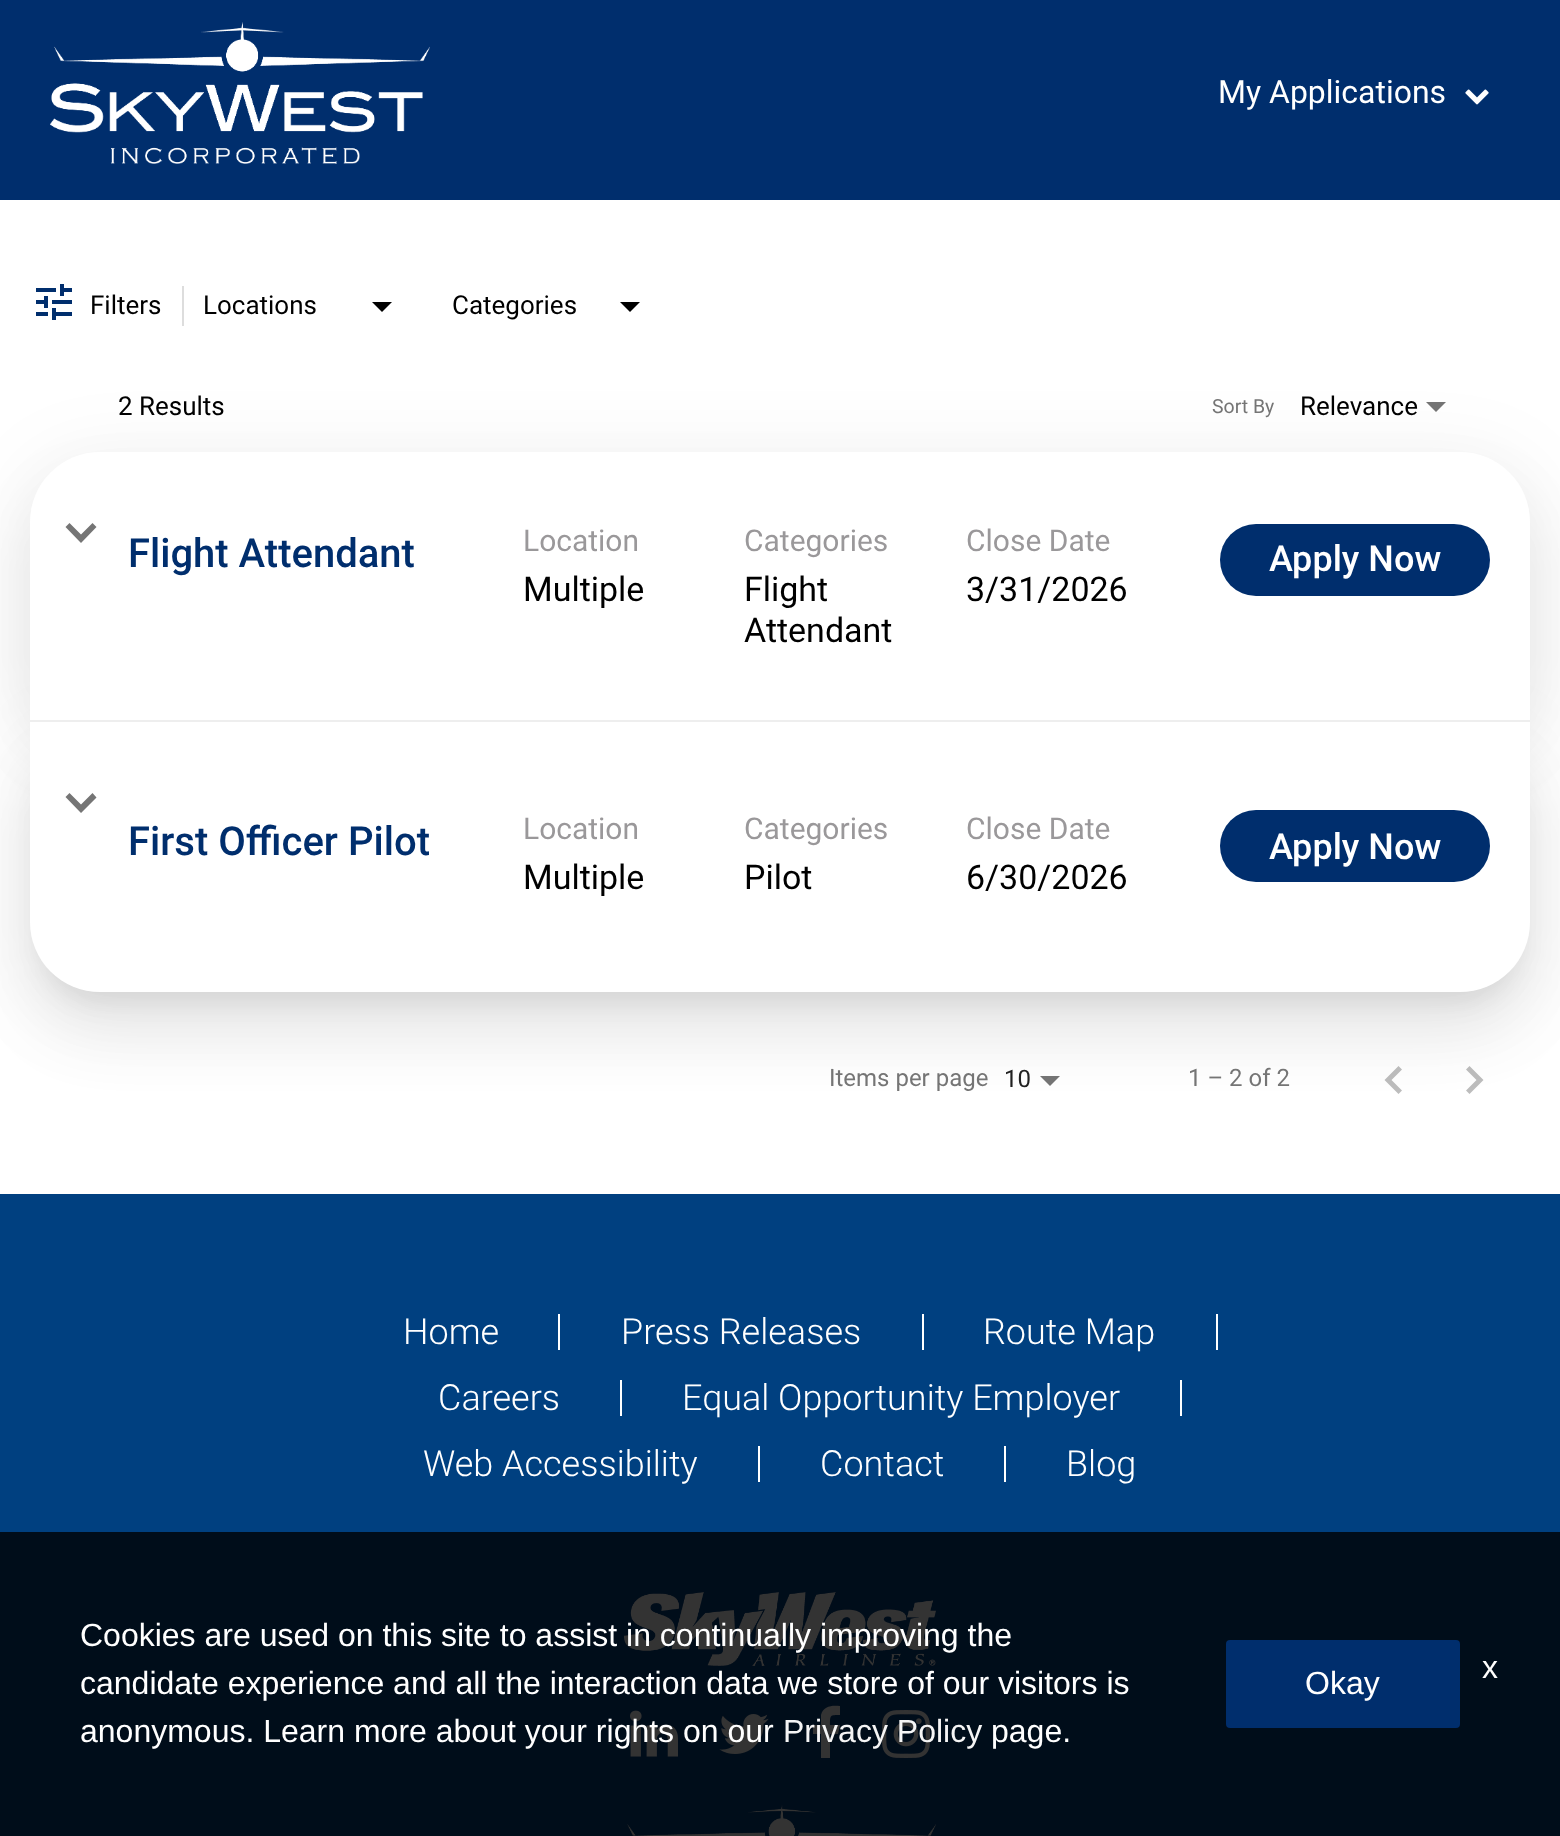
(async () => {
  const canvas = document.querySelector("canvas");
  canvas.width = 1560;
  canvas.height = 1836;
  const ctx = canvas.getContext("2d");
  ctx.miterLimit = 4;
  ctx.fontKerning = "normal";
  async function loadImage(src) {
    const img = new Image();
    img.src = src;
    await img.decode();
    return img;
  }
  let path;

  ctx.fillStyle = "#ffffff";
  ctx.fillRect(0, 0, 1560, 1836);
  ctx.fillStyle = "#002e6d";
  ctx.fillRect(0, 0, 1560, 200);
  ctx.drawImage(await loadImage("img/1.png"), 50, 22, 380, 142);
  ctx.drawImage(await loadImage("img/2.png"), 1465, 89, 24, 16);
  ctx.drawImage(await loadImage("img/3.png"), 36, 284, 36, 36);
  ctx.fillStyle = "#dddddd";
  ctx.fillRect(182, 286, 2, 40);
  ctx.fillStyle = "#000000";
  path = new Path2D("M372 302H392L382 312Z");
  ctx.fill(path);
  path = new Path2D("M620 302H640L630 312Z");
  ctx.fill(path);
  ctx.fillStyle = "#757575";
  path = new Path2D("M1426 402H1446L1436 412Z");
  ctx.fill(path);
  ctx.fillStyle = "rgba(0, 0, 0, 0.05)";
  ctx.filter = "blur(38px)";
  ctx.beginPath();
  ctx.roundRect(16, 454, 1528, 298, 84);
  ctx.fill();
  ctx.filter = "none";
  ctx.fillStyle = "rgba(0, 0, 0, 0.06)";
  ctx.filter = "blur(31px)";
  ctx.beginPath();
  ctx.roundRect(24, 486, 1512, 282, 76);
  ctx.fill();
  ctx.filter = "none";
  ctx.fillStyle = "rgba(0, 0, 0, 0.05)";
  ctx.filter = "blur(38px)";
  ctx.beginPath();
  ctx.roundRect(16, 724, 1528, 298, 84);
  ctx.fill();
  ctx.filter = "none";
  ctx.fillStyle = "rgba(0, 0, 0, 0.06)";
  ctx.filter = "blur(31px)";
  ctx.beginPath();
  ctx.roundRect(24, 756, 1512, 282, 76);
  ctx.fill();
  ctx.filter = "none";
  ctx.fillStyle = "rgba(0, 0, 0, 0.08)";
  ctx.filter = "blur(13px)";
  ctx.beginPath();
  ctx.roundRect(42, 754, 1476, 246, 58);
  ctx.fill();
  ctx.filter = "none";
  ctx.fillStyle = "#ffffff";
  ctx.beginPath();
  ctx.roundRect(30, 452, 1500, 270, [70, 70, 0, 0]);
  ctx.fill();
  ctx.fillStyle = "#757575";
  path = new Path2D("M96.5 527L81 543V534.5L92.5 523ZM81 543L65.5 527L69.5 523L81 534.5Z");
  ctx.fill(path);
  ctx.fillStyle = "#002e6d";
  ctx.beginPath();
  ctx.roundRect(1220, 524, 270, 72, 36);
  ctx.fill();
  ctx.fillStyle = "#eeeeee";
  ctx.fillRect(30, 720, 1500, 2);
  ctx.fillStyle = "#ffffff";
  ctx.beginPath();
  ctx.roundRect(30, 722, 1500, 270, [0, 0, 70, 70]);
  ctx.fill();
  ctx.fillStyle = "#757575";
  path = new Path2D("M96.5 797.5L81 813V804.5L92.5 793ZM81 813L65.5 797L69.5 793L81 804.5Z");
  ctx.fill(path);
  ctx.fillStyle = "#002e6d";
  ctx.beginPath();
  ctx.roundRect(1220, 810, 270, 72, 36);
  ctx.fill();
  ctx.fillStyle = "#747474";
  path = new Path2D("M1040 1076H1060L1050 1086Z");
  ctx.fill(path);
  ctx.fillStyle = "rgba(0, 0, 0, 0.26)";
  path = new Path2D("M1402 1069.5L1398.5 1066L1384.5 1080L1398.5 1094L1402 1090.5L1391.5 1080Z");
  ctx.fill(path);
  path = new Path2D("M1469.5 1066L1466 1069.5L1476.5 1080L1466 1090.5L1469.5 1094L1483.5 1080Z");
  ctx.fill(path);
  for (const [x, y, w, h, color] of [
    [0, 1194, 1560, 338, "#004080"],
    [0, 1532, 1560, 304, "#000d1a"],
    [558, 1314, 2, 36, "#ffffff"],
    [922, 1314, 2, 36, "#ffffff"],
    [1216, 1314, 2, 36, "#ffffff"],
    [620, 1380, 2, 36, "#ffffff"],
    [1180, 1380, 2, 36, "#ffffff"],
    [758, 1446, 2, 36, "#ffffff"],
    [1004, 1446, 2, 36, "#ffffff"],
  ]) {
    ctx.fillStyle = color;
    ctx.fillRect(x, y, w, h);
  }
  ctx.drawImage(await loadImage("img/4.png"), 624, 1592, 312, 74);
  ctx.drawImage(await loadImage("img/5.png"), 630, 1710, 48, 47);
  ctx.drawImage(await loadImage("img/6.png"), 719, 1714, 50, 40);
  ctx.fillStyle = "#333333";
  path = new Path2D("M840 1706V1715C830 1715 830 1715 830 1725H840L838 1734H830V1758H821V1734H813V1725H821V1715C823 1706 832 1705 840 1706Z");
  ctx.fill(path);
  ctx.drawImage(await loadImage("img/7.png"), 882, 1710, 48, 48);
  ctx.drawImage(await loadImage("img/8.png"), 627, 1804, 309, 32);
  ctx.fillStyle = "#002e6d";
  ctx.beginPath();
  ctx.roundRect(1226, 1640, 234, 88, 4);
  ctx.fill();
  ctx.font = "32px Roboto";
  ctx.fillStyle = "#ffffff";
  ctx.fillText("My Applications", 1218, 103);
  ctx.font = "26px Roboto";
  ctx.fillStyle = "#000000";
  for (const [text, x, y] of [
    ["Filters", 90, 314],
    ["Locations", 203, 314],
    ["Categories", 452, 314],
    ["2 Results", 118, 415],
  ]) {
    ctx.fillText(text, x, y);
  }
  ctx.font = "19.5px Roboto";
  ctx.fillStyle = "#757575";
  ctx.fillText("Sort By", 1212, 413);
  ctx.font = "26px Roboto";
  ctx.fillStyle = "#000000";
  ctx.fillText("Relevance", 1300, 415);
  ctx.font = "500 40px Roboto";
  ctx.fillStyle = "#002e6d";
  ctx.fillText("Flight Attendant", 128, 567);
  ctx.font = "30px Roboto";
  ctx.fillStyle = "#9a989a";
  ctx.fillText("Location", 523, 551);
  ctx.font = "34px Roboto";
  ctx.fillStyle = "#000000";
  ctx.fillText("Multiple", 523, 601);
  ctx.font = "30px Roboto";
  ctx.fillStyle = "#9a989a";
  ctx.fillText("Categories", 744, 551);
  ctx.font = "34px Roboto";
  ctx.fillStyle = "#000000";
  ctx.fillText("Flight", 744, 601);
  ctx.fillText("Attendant", 744, 642);
  ctx.font = "30px Roboto";
  ctx.fillStyle = "#9a989a";
  ctx.fillText("Close Date", 966, 551);
  ctx.font = "34px Roboto";
  ctx.fillStyle = "#000000";
  ctx.fillText("3/31/2026", 966, 601);
  ctx.font = "500 36px Roboto";
  ctx.fillStyle = "#ffffff";
  ctx.fillText("Apply Now", 1269, 571);
  ctx.font = "500 40px Roboto";
  ctx.fillStyle = "#002e6d";
  ctx.fillText("First Officer Pilot", 128, 855);
  ctx.font = "30px Roboto";
  ctx.fillStyle = "#9a989a";
  ctx.fillText("Location", 523, 839);
  ctx.font = "34px Roboto";
  ctx.fillStyle = "#000000";
  ctx.fillText("Multiple", 523, 889);
  ctx.font = "30px Roboto";
  ctx.fillStyle = "#9a989a";
  ctx.fillText("Categories", 744, 839);
  ctx.font = "34px Roboto";
  ctx.fillStyle = "#000000";
  ctx.fillText("Pilot", 744, 889);
  ctx.font = "30px Roboto";
  ctx.fillStyle = "#9a989a";
  ctx.fillText("Close Date", 966, 839);
  ctx.font = "34px Roboto";
  ctx.fillStyle = "#000000";
  ctx.fillText("6/30/2026", 966, 889);
  ctx.font = "500 36px Roboto";
  ctx.fillStyle = "#ffffff";
  ctx.fillText("Apply Now", 1269, 859);
  ctx.font = "24px Roboto";
  ctx.fillStyle = "#757575";
  ctx.fillText("Items per page", 829, 1086);
  ctx.fillStyle = "#212121";
  ctx.fillText("10", 1004, 1087);
  ctx.fillStyle = "#757575";
  ctx.fillText("1 – 2 of 2", 1188, 1086);
  ctx.font = "300 36px Roboto";
  ctx.fillStyle = "#ffffff";
  for (const [text, x, y] of [
    ["Home", 403, 1344],
    ["Press Releases", 621, 1344],
    ["Route Map", 983, 1344],
    ["Careers", 438, 1410],
    ["Equal Opportunity Employer", 682, 1410],
    ["Web Accessibility", 423, 1476],
    ["Contact", 820, 1476],
    ["Blog", 1066, 1476],
  ]) {
    ctx.fillText(text, x, y);
  }
  ctx.font = "32px Liberation Sans";
  for (const [text, x, y] of [
    ["Cookies are used on this site to assist in continually improving the", 80, 1646],
    ["candidate experience and all the interaction data we store of our visitors is", 80, 1694],
    ["anonymous. Learn more about your rights on our", 80, 1742],
  ]) {
    ctx.fillText(text, x, y);
  }
  ctx.fillStyle = "#f5f5f5";
  ctx.fillText("Privacy Policy", 783, 1742);
  ctx.fillStyle = "#ffffff";
  for (const [text, x, y] of [
    ["page.", 991, 1742],
    ["Okay", 1305, 1694],
    ["x", 1482, 1678],
  ]) {
    ctx.fillText(text, x, y);
  }
})();
